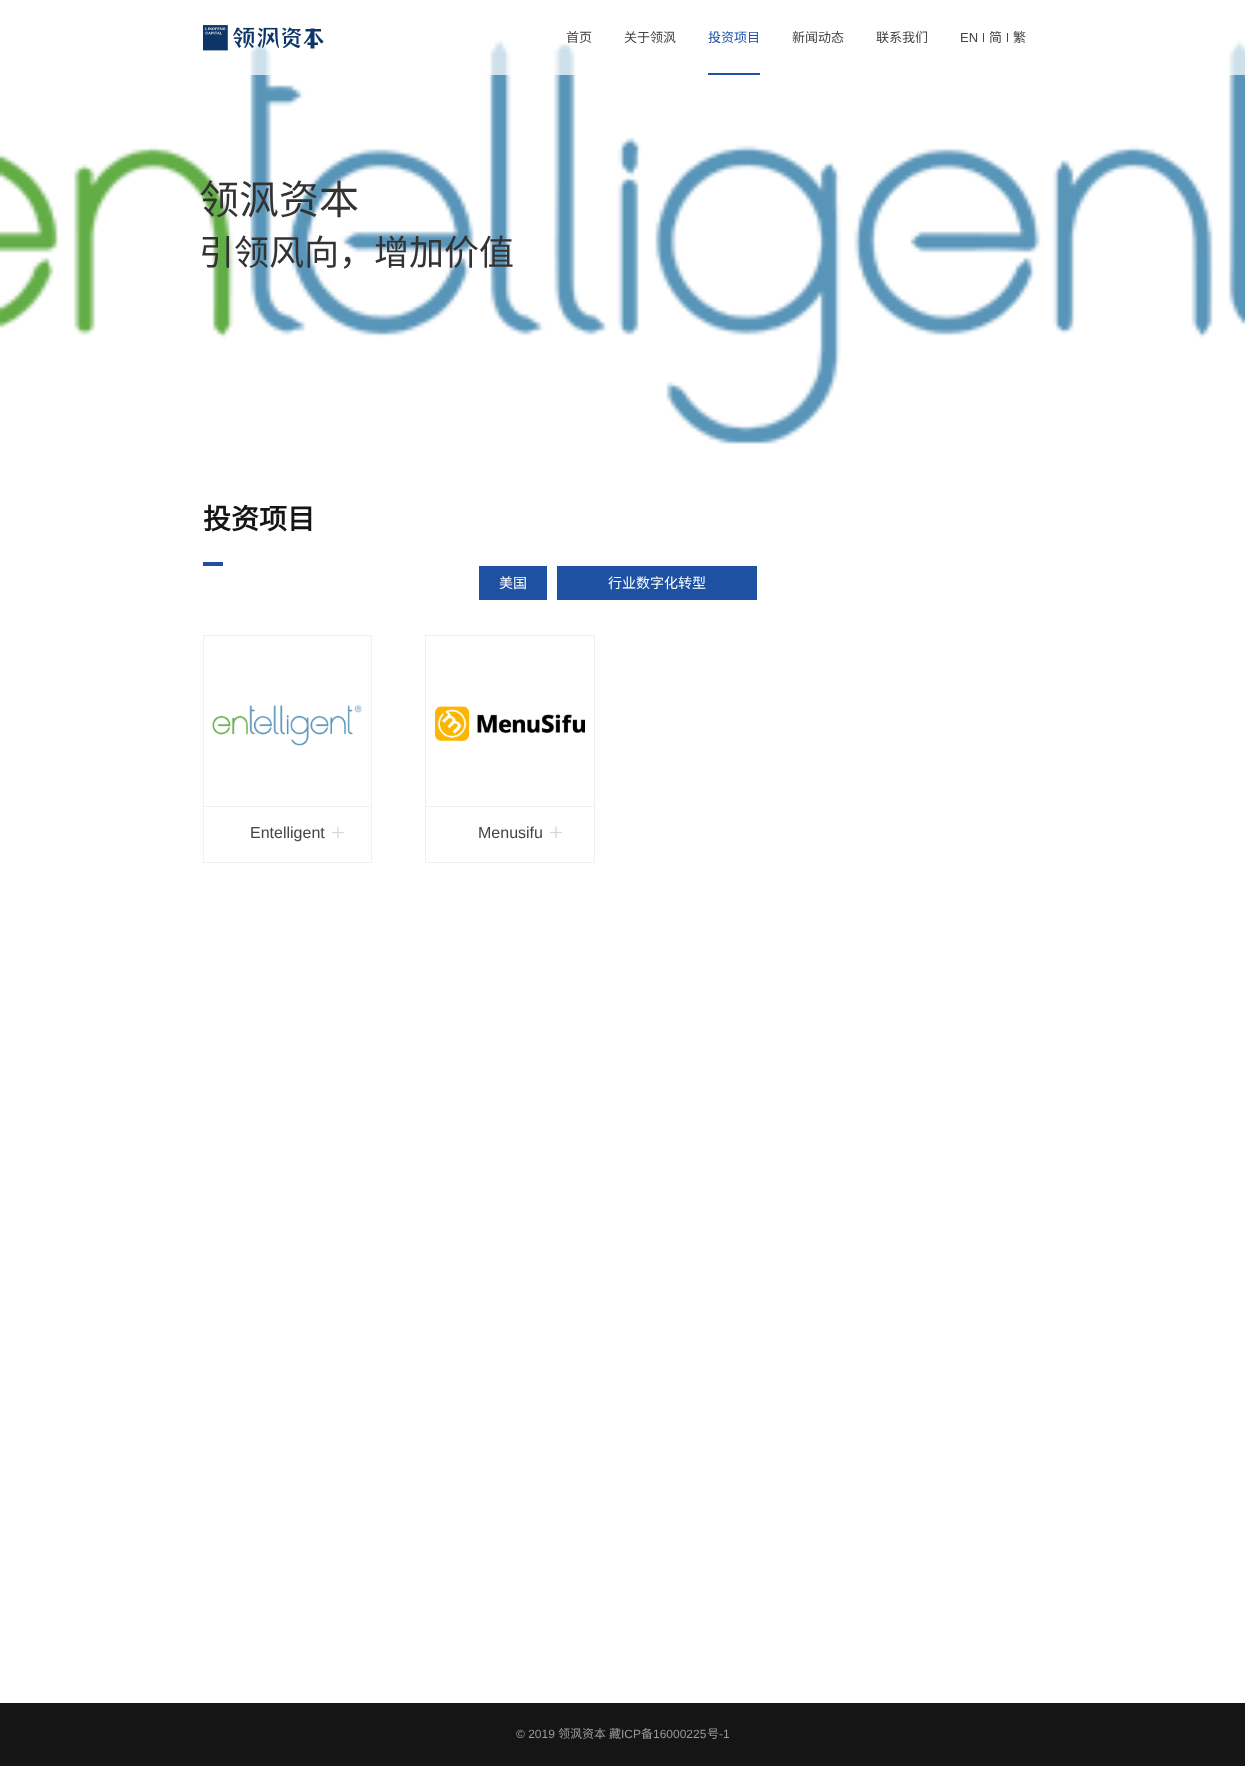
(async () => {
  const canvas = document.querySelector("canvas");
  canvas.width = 1245;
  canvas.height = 1766;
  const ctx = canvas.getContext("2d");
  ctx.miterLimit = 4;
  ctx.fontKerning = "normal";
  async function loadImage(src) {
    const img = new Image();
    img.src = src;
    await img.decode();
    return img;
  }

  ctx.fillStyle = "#ffffff";
  ctx.fillRect(0, 0, 1245, 1766);
  ctx.drawImage(await loadImage("img/2.png"), 0, 40, 1245, 404);
  ctx.fillStyle = "rgba(255, 255, 255, 0.7)";
  ctx.fillRect(250, 40, 995, 35);
  ctx.drawImage(await loadImage("img/1.png"), 203, 25, 121, 26);
  for (const [x, y, w, h, color] of [
    [708, 73, 52, 2, "#1e51a2"],
    [983, 33, 1, 9, "#444444"],
    [1007, 33, 1, 9, "#444444"],
    [203, 562, 20, 4, "#1e51a2"],
    [479, 566, 68, 34, "#1e51a2"],
    [557, 566, 200, 34, "#1e51a2"],
  ]) {
    ctx.fillStyle = color;
    ctx.fillRect(x, y, w, h);
  }
  ctx.strokeStyle = "#f0f0f0";
  ctx.strokeRect(203.5, 635.5, 168, 227);
  ctx.drawImage(await loadImage("img/3.png"), 212, 705, 150, 41);
  ctx.fillStyle = "#f0f0f0";
  ctx.fillRect(204, 806, 167, 1);
  ctx.drawImage(await loadImage("img/4.png"), 332, 826, 12, 13);
  ctx.strokeRect(425.5, 635.5, 169, 227);
  ctx.drawImage(await loadImage("img/5.png"), 435, 706, 150, 36);
  ctx.fillRect(426, 806, 168, 1);
  ctx.drawImage(await loadImage("img/4.png"), 550, 826, 12, 13);
  ctx.fillStyle = "#151515";
  ctx.fillRect(0, 1703, 1245, 63);
  ctx.font = "13px Noto Sans CJK SC";
  ctx.fillStyle = "#444444";
  ctx.fillText("首页", 566, 42);
  ctx.fillText("关于领沨", 624, 42);
  ctx.fillStyle = "#1e51a2";
  ctx.fillText("投资项目", 708, 42);
  ctx.fillStyle = "#444444";
  ctx.fillText("新闻动态", 792, 42);
  ctx.fillText("联系我们", 876, 42);
  ctx.font = "13px Liberation Sans";
  ctx.fillText("EN", 960, 42);
  ctx.font = "13px Noto Sans CJK SC";
  ctx.fillText("简", 989, 42);
  ctx.fillText("繁", 1013, 42);
  ctx.font = "40px Noto Sans CJK SC";
  ctx.fillStyle = "#333333";
  ctx.fillText("领沨资本", 199, 214);
  ctx.font = "35px Noto Sans CJK SC";
  ctx.fillText("引领风向，增加价值", 199, 265);
  ctx.font = "bold 28px Noto Sans CJK SC";
  ctx.fillStyle = "#151515";
  ctx.fillText("投资项目", 203, 529);
  ctx.font = "14px Noto Sans CJK SC";
  ctx.fillStyle = "#ffffff";
  ctx.fillText("美国", 499, 588);
  ctx.fillText("行业数字化转型", 608, 588);
  ctx.font = "16px Liberation Sans";
  ctx.fillStyle = "#444444";
  ctx.fillText("Entelligent", 250, 838);
  ctx.fillText("Menusifu", 478, 838);
  ctx.font = "12px Liberation Sans";
  ctx.fillStyle = "#999999";
  ctx.fillText("© 2019", 516, 1738);
  ctx.font = "12px Noto Sans CJK SC";
  ctx.fillText("领沨资本", 558, 1738);
  ctx.fillText("藏", 609, 1738);
  ctx.font = "12px Liberation Sans";
  ctx.fillText("ICP", 621, 1738);
  ctx.font = "12px Noto Sans CJK SC";
  ctx.fillText("备", 641, 1738);
  ctx.font = "12px Liberation Sans";
  ctx.fillText("16000225", 653, 1738);
  ctx.font = "12px Noto Sans CJK SC";
  ctx.fillText("号", 707, 1738);
  ctx.font = "12px Liberation Sans";
  ctx.fillText("-1", 719, 1738);
})();
